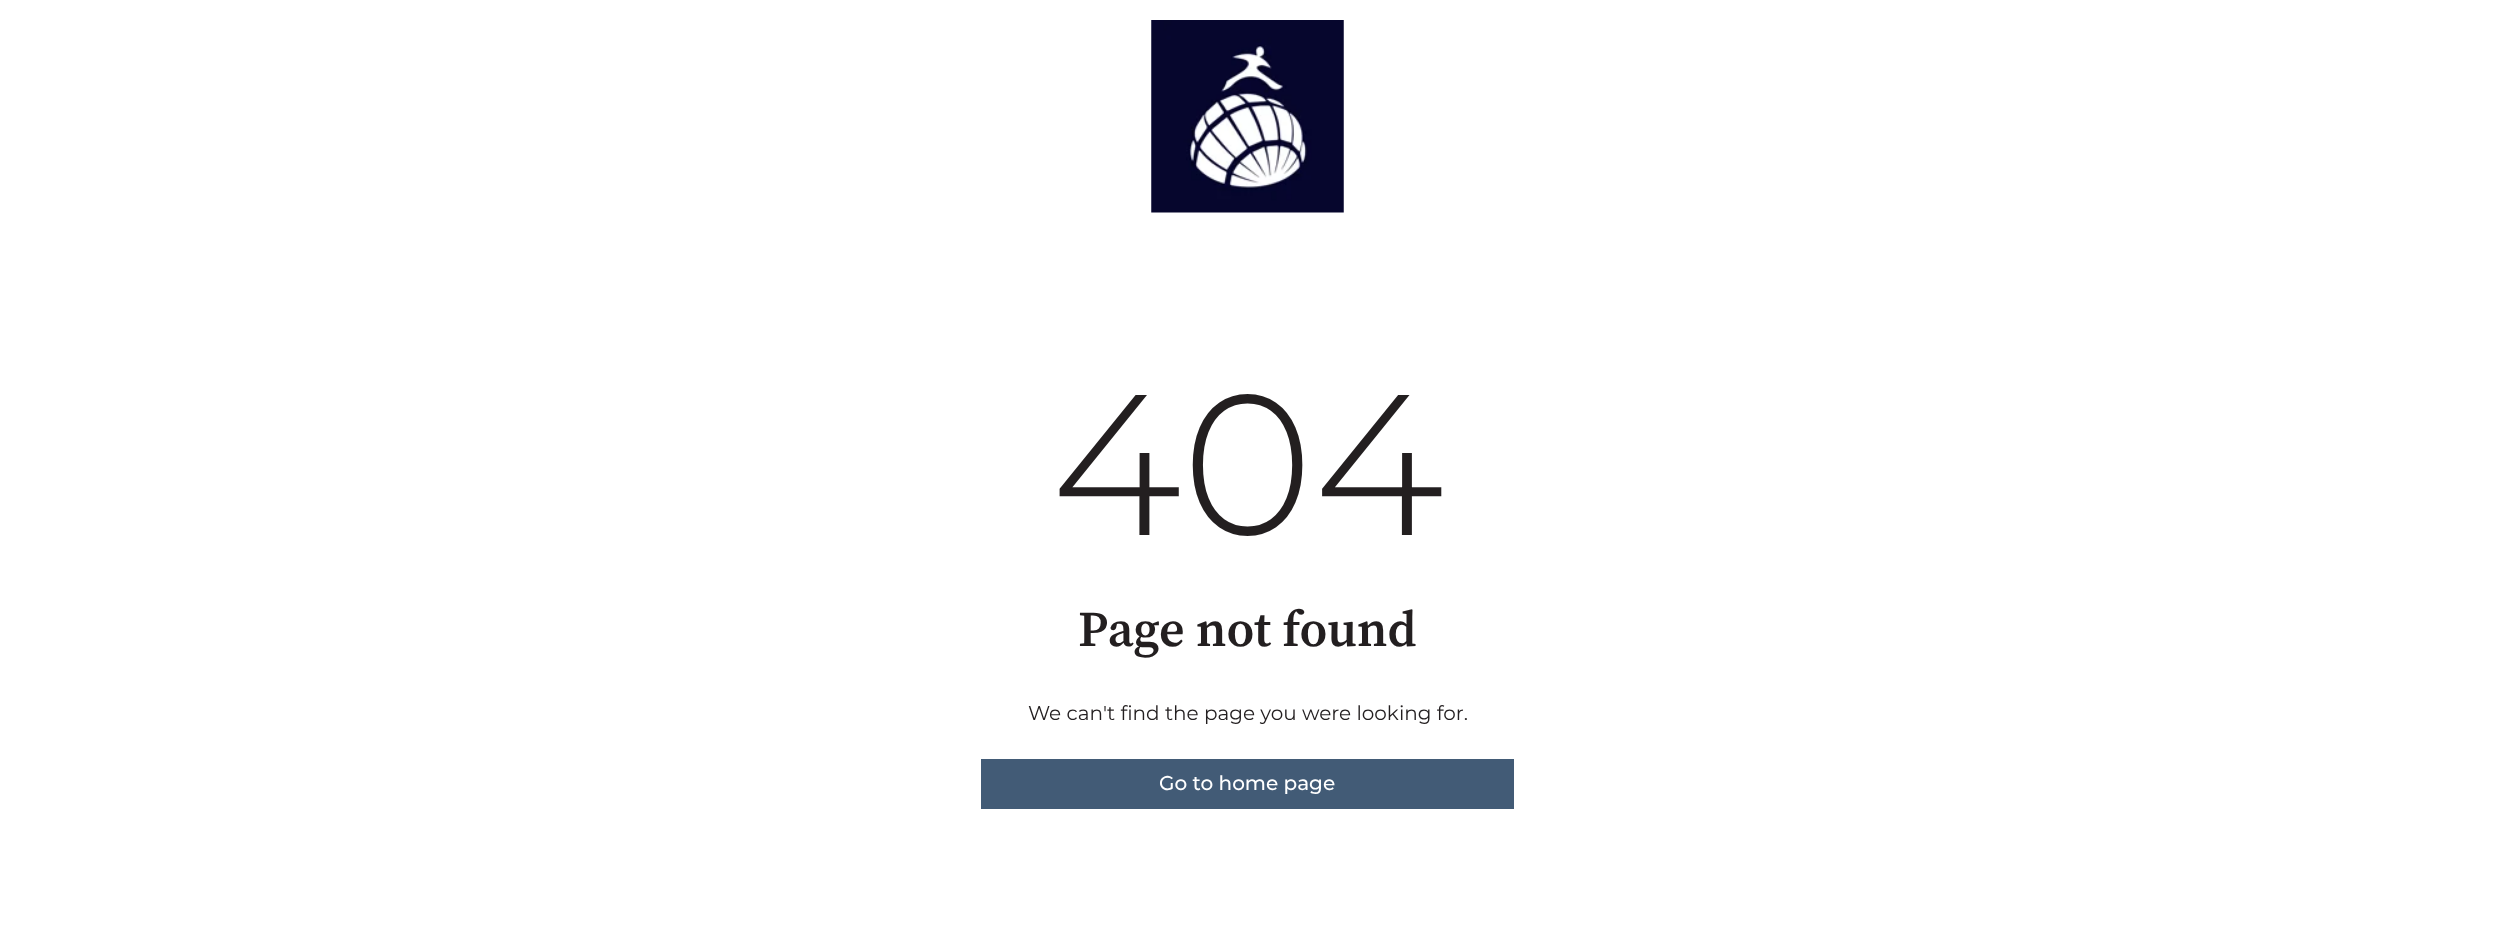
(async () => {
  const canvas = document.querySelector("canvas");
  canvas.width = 2494;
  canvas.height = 940;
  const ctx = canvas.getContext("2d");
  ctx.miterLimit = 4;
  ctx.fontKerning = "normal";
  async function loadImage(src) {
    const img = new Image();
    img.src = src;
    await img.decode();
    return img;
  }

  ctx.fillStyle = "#ffffff";
  ctx.fillRect(0, 0, 2494, 940);
  ctx.drawImage(await loadImage("img/1.png"), 1151, 20, 193, 193);
  ctx.fillStyle = "#425b76";
  ctx.fillRect(981, 759, 533, 50);
  ctx.font = "300 200px Montserrat";
  ctx.fillStyle = "#231f20";
  ctx.fillText("404", 1051, 535);
  ctx.font = "600 50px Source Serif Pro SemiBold";
  ctx.fillText("Page not found", 1078, 646);
  ctx.font = "20px Montserrat";
  ctx.fillText("We can't find the page you were looking for.", 1028, 720);
  ctx.font = "500 20px Montserrat";
  ctx.fillStyle = "#ffffff";
  ctx.fillText("Go to home page", 1159, 790);
})();
